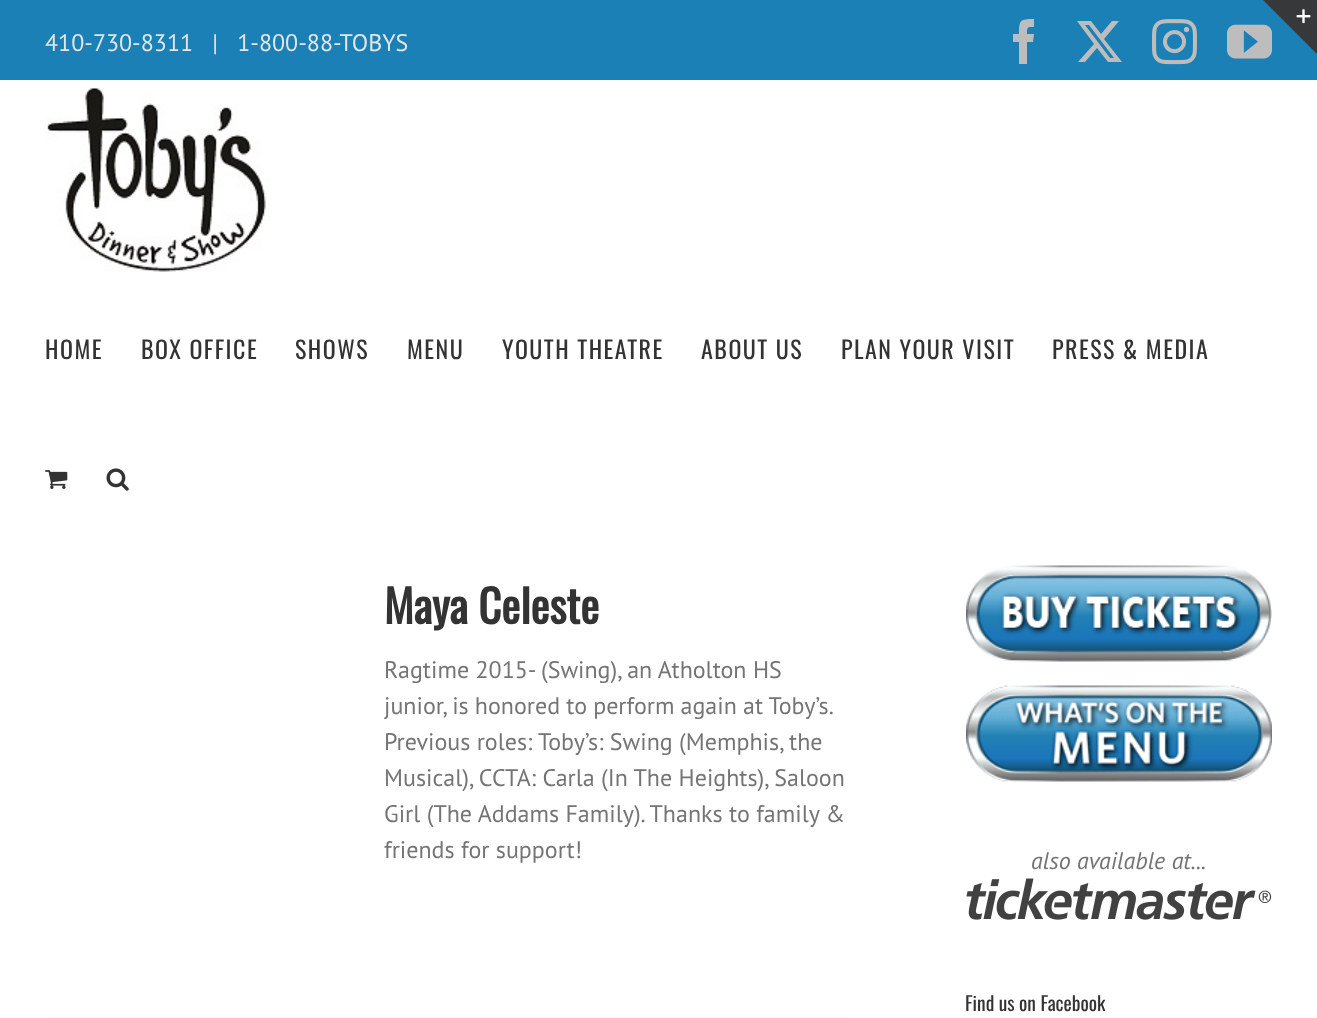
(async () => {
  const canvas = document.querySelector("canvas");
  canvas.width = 1317;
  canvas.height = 1018;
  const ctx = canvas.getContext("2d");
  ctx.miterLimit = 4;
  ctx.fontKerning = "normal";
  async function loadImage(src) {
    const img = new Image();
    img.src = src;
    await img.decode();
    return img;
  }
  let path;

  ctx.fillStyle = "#ffffff";
  ctx.fillRect(0, 0, 1317, 1018);
  ctx.fillStyle = "#1a80b6";
  ctx.fillRect(0, 0, 1317, 80);
  ctx.drawImage(await loadImage("img/3.png"), 1227, 24, 45, 35);
  ctx.fillStyle = "#363839";
  path = new Path2D("M1263 0H1317V54Z");
  ctx.fill(path);
  ctx.drawImage(await loadImage("img/1.png"), 1296, 9, 15, 15);
  ctx.fillStyle = "#bebdbd";
  path = new Path2D("M1027 64H1019V42H1013V34H1019C1019 20 1020 19 1034 19V27C1027 27 1027 27 1027 34H1034L1033 42H1027Z");
  ctx.fill(path);
  path = new Path2D("M1112 21H1119L1104 39L1122 62H1108L1097 48L1085 62H1078L1094 44L1077 21H1091L1101 34ZM1110 58H1114L1089 25H1085Z");
  ctx.fill(path);
  ctx.drawImage(await loadImage("img/2.png"), 1152, 19, 45, 46);
  ctx.drawImage(await loadImage("img/4.png"), 45, 87, 225, 185);
  ctx.drawImage(await loadImage("img/5.png"), 45, 470, 23, 19);
  ctx.drawImage(await loadImage("img/6.png"), 106, 468, 23, 23);
  ctx.fillStyle = "#f6f6f6";
  ctx.fillRect(45, 1017, 801, 1);
  ctx.drawImage(await loadImage("img/7.png"), 966, 565, 306, 97);
  ctx.drawImage(await loadImage("img/8.png"), 966, 685, 306, 97);
  ctx.drawImage(await loadImage("img/9.png"), 966, 878, 306, 42);
  ctx.font = "24px PT Sans";
  ctx.fillStyle = "#e5e5e5";
  ctx.fillText("410-730-8311   |   1-800-88-TOBYS", 45, 51);
  ctx.letterSpacing = "1.5px";
  ctx.font = "24px Oswald";
  ctx.fillStyle = "#333333";
  for (const [text, x, y] of [
    ["HOME", 45, 359],
    ["BOX OFFICE", 141, 359],
    ["SHOWS", 295, 359],
    ["MENU", 407, 359],
    ["YOUTH THEATRE", 502, 359],
    ["ABOUT US", 701, 359],
    ["PLAN YOUR VISIT", 841, 359],
    ["PRESS & MEDIA", 1052, 359],
  ]) {
    ctx.fillText(text, x, y);
  }
  ctx.letterSpacing = "0px";
  ctx.font = "bold 45px Oswald";
  ctx.fillText("Maya Celeste", 384, 624);
  ctx.font = "24px PT Sans";
  ctx.fillStyle = "#747474";
  ctx.fillText("Ragtime 2015- (Swing), an Atholton HS", 384, 678);
  ctx.wordSpacing = "-0.25px";
  ctx.fillText("junior, is honored to perform again at Toby’s.", 384, 714);
  ctx.wordSpacing = "0px";
  for (const [text, x, y] of [
    ["Previous roles: Toby’s: Swing (Memphis, the", 384, 750],
    ["Musical), CCTA: Carla (In The Heights), Saloon", 384, 786],
    ["Girl (The Addams Family). Thanks to family &", 384, 822],
    ["friends for support!", 384, 858],
  ]) {
    ctx.fillText(text, x, y);
  }
  ctx.font = "italic 24px PT Sans";
  ctx.fillText("also available at...", 1031, 869);
  ctx.font = "19.5px Oswald";
  ctx.fillStyle = "#333333";
  ctx.fillText("Find us on Facebook", 965, 1011);
})();
